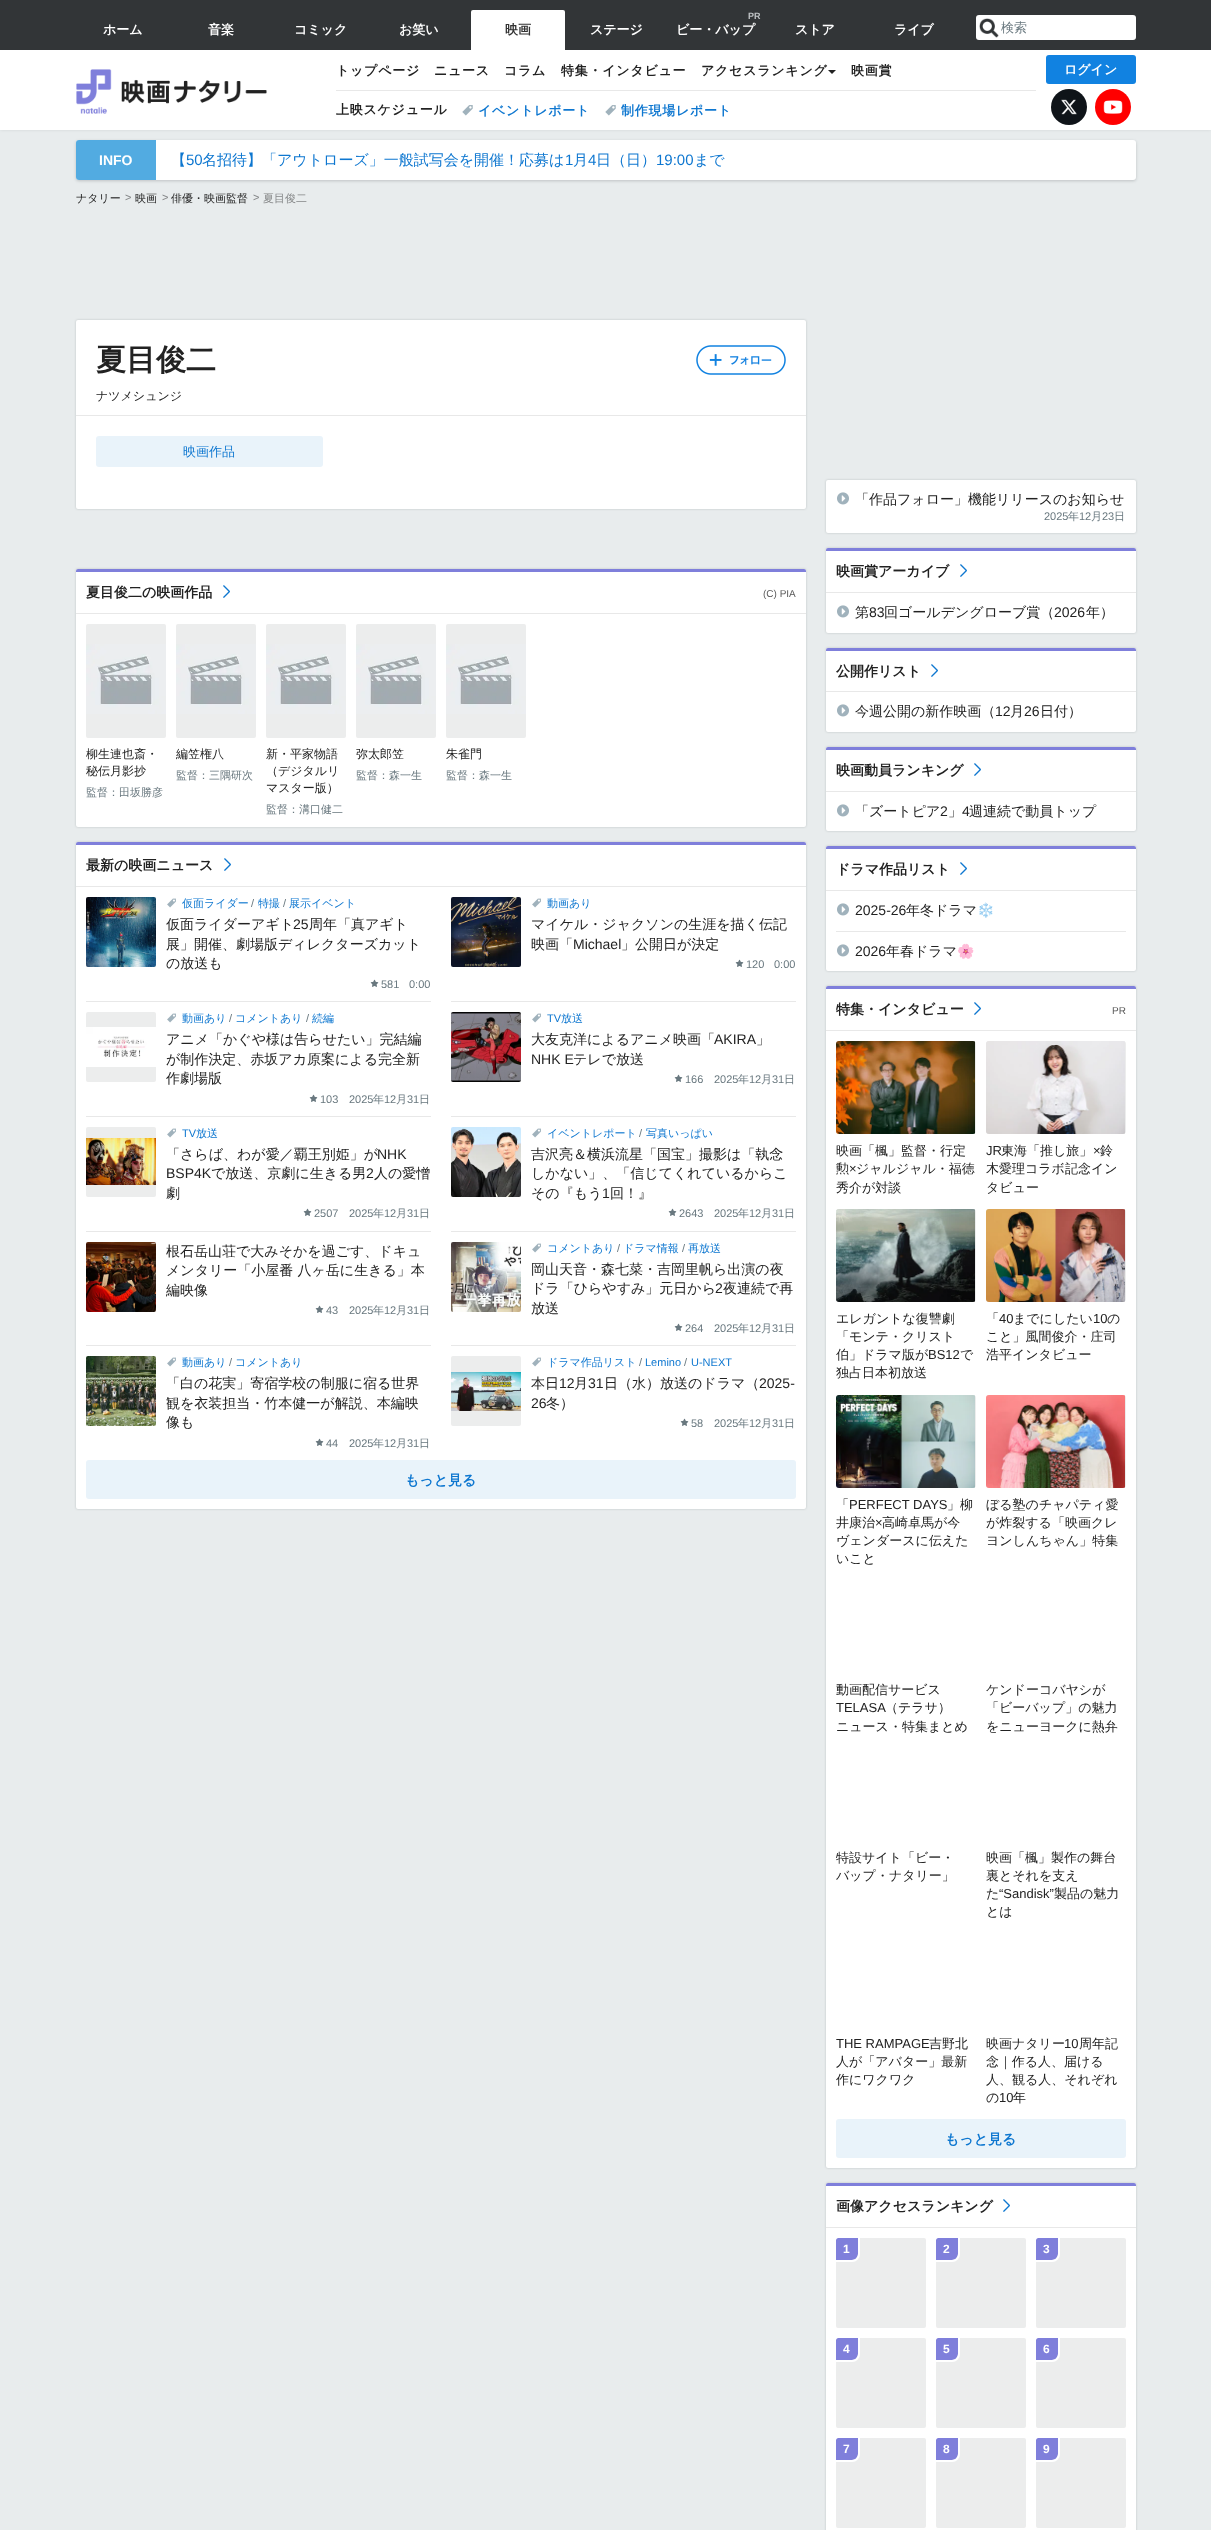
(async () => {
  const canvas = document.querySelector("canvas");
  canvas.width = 1211;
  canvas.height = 2530;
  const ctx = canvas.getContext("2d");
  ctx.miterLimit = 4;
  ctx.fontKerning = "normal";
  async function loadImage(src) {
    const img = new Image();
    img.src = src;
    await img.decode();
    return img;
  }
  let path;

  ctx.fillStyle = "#e8eced";
  ctx.fillRect(0, 0, 1211, 2530);
  ctx.fillStyle = "#323537";
  ctx.fillRect(0, 0, 1211, 5);
  ctx.fillStyle = "rgba(20, 25, 28, 0.1)";
  ctx.filter = "blur(1.5px)";
  ctx.beginPath();
  ctx.rect(0, 50, 1211, 80);
  ctx.fill();
  ctx.filter = "none";
  ctx.fillStyle = "#323537";
  ctx.fillRect(0, 5, 1211, 45);
  ctx.fillStyle = "#ffffff";
  ctx.beginPath();
  ctx.roundRect(471, 10, 94, 40, [2, 2, 0, 0]);
  ctx.fill();
  ctx.beginPath();
  ctx.roundRect(976, 15, 160, 25, 3);
  ctx.fill();
  ctx.drawImage(await loadImage("img/1.png"), 979, 18, 20, 20);
  ctx.fillRect(0, 50, 1211, 80);
  ctx.drawImage(await loadImage("img/2.png"), 76, 69, 191, 45);
  ctx.fillStyle = "#222222";
  path = new Path2D("M828 70H836L832 74Z");
  ctx.fill(path);
  ctx.fillStyle = "#e8e8e8";
  ctx.fillRect(336, 90, 700, 1);
  ctx.drawImage(await loadImage("img/3.png"), 462, 105, 11, 11);
  ctx.drawImage(await loadImage("img/3.png"), 605, 105, 11, 11);
  ctx.fillStyle = "#0f1419";
  ctx.beginPath();
  ctx.arc(1069, 107, 18, 0, Math.PI * 2);
  ctx.fill();
  ctx.drawImage(await loadImage("img/4.png"), 1061, 99, 16, 16);
  ctx.fillStyle = "#ff0000";
  ctx.beginPath();
  ctx.arc(1113, 107, 18, 0, Math.PI * 2);
  ctx.fill();
  ctx.drawImage(await loadImage("img/5.png"), 1103, 100, 20, 14);
  ctx.fillStyle = "#1182e1";
  ctx.beginPath();
  ctx.roundRect(1046, 55, 90, 29, 3);
  ctx.fill();
  ctx.fillStyle = "rgba(20, 25, 28, 0.2)";
  ctx.filter = "blur(1.5px)";
  ctx.beginPath();
  ctx.roundRect(76, 141, 1060, 40, 3);
  ctx.fill();
  ctx.filter = "none";
  ctx.fillStyle = "#ffffff";
  ctx.beginPath();
  ctx.roundRect(76, 140, 1060, 40, 3);
  ctx.fill();
  ctx.fillStyle = "#52abe1";
  ctx.beginPath();
  ctx.roundRect(76, 140, 80, 40, [3, 0, 0, 3]);
  ctx.fill();
  ctx.fillStyle = "rgba(20, 25, 28, 0.2)";
  ctx.filter = "blur(1px)";
  ctx.beginPath();
  ctx.roundRect(76, 320, 730, 189, 2);
  ctx.fill();
  ctx.filter = "none";
  ctx.fillStyle = "#ffffff";
  ctx.beginPath();
  ctx.roundRect(76, 320, 730, 189, 2);
  ctx.fill();
  ctx.fillStyle = "#e8e8e8";
  ctx.fillRect(76, 415, 730, 1);
  ctx.drawImage(await loadImage("img/6.png"), 696, 345, 90, 30);
  ctx.fillStyle = "#e9f3fa";
  ctx.beginPath();
  ctx.roundRect(96, 436, 227, 31, 3);
  ctx.fill();
  ctx.fillStyle = "rgba(20, 25, 28, 0.2)";
  ctx.filter = "blur(1px)";
  ctx.beginPath();
  ctx.roundRect(76, 569, 730, 258, 2);
  ctx.fill();
  ctx.filter = "none";
  ctx.fillStyle = "#ffffff";
  ctx.beginPath();
  ctx.roundRect(76, 569, 730, 258, 2);
  ctx.fill();
  ctx.fillStyle = "#7f7fdb";
  ctx.beginPath();
  ctx.roundRect(76, 569, 730, 3, [2, 2, 0, 0]);
  ctx.fill();
  ctx.fillStyle = "#e8e8e8";
  ctx.fillRect(76, 613, 730, 1);
  ctx.drawImage(await loadImage("img/7.png"), 223, 585, 7, 13);
  ctx.fillStyle = "#eceded";
  ctx.beginPath();
  ctx.roundRect(86, 624, 80, 114, 2);
  ctx.fill();
  ctx.drawImage(await loadImage("img/8.png"), 86, 644, 80, 70);
  ctx.beginPath();
  ctx.roundRect(176, 624, 80, 114, 2);
  ctx.fill();
  ctx.drawImage(await loadImage("img/8.png"), 176, 644, 80, 70);
  ctx.beginPath();
  ctx.roundRect(266, 624, 80, 114, 2);
  ctx.fill();
  ctx.drawImage(await loadImage("img/8.png"), 266, 644, 80, 70);
  ctx.beginPath();
  ctx.roundRect(356, 624, 80, 114, 2);
  ctx.fill();
  ctx.drawImage(await loadImage("img/8.png"), 356, 644, 80, 70);
  ctx.beginPath();
  ctx.roundRect(446, 624, 80, 114, 2);
  ctx.fill();
  ctx.drawImage(await loadImage("img/8.png"), 446, 644, 80, 70);
  ctx.fillStyle = "rgba(20, 25, 28, 0.2)";
  ctx.filter = "blur(1px)";
  ctx.beginPath();
  ctx.roundRect(76, 842, 730, 667, 2);
  ctx.fill();
  ctx.filter = "none";
  ctx.fillStyle = "#ffffff";
  ctx.beginPath();
  ctx.roundRect(76, 842, 730, 667, 2);
  ctx.fill();
  ctx.fillStyle = "#7f7fdb";
  ctx.beginPath();
  ctx.roundRect(76, 842, 730, 3, [2, 2, 0, 0]);
  ctx.fill();
  ctx.fillStyle = "#e8e8e8";
  ctx.fillRect(76, 886, 730, 1);
  ctx.drawImage(await loadImage("img/7.png"), 224, 858, 7, 13);
  ctx.drawImage(await loadImage("img/9.png"), 167, 898, 9, 10);
  ctx.drawImage(await loadImage("img/10.png"), 86, 897, 70, 70);
  ctx.drawImage(await loadImage("img/11.png"), 370, 979, 9, 8);
  ctx.drawImage(await loadImage("img/9.png"), 532, 898, 9, 10);
  ctx.drawImage(await loadImage("img/12.png"), 451, 897, 70, 70);
  ctx.drawImage(await loadImage("img/11.png"), 735, 959, 9, 8);
  ctx.fillRect(86, 1001, 345, 1);
  ctx.drawImage(await loadImage("img/9.png"), 167, 1013, 9, 10);
  ctx.fillStyle = "#eceded";
  ctx.beginPath();
  ctx.roundRect(86, 1012, 70, 70, 2);
  ctx.fill();
  ctx.drawImage(await loadImage("img/13.png"), 86, 1027, 70, 40);
  ctx.drawImage(await loadImage("img/11.png"), 309, 1094, 9, 8);
  ctx.fillStyle = "#e8e8e8";
  ctx.fillRect(451, 1001, 345, 1);
  ctx.drawImage(await loadImage("img/9.png"), 532, 1013, 9, 10);
  ctx.drawImage(await loadImage("img/14.png"), 451, 1012, 70, 70);
  ctx.drawImage(await loadImage("img/11.png"), 674, 1074, 9, 8);
  ctx.fillRect(86, 1116, 345, 1);
  ctx.drawImage(await loadImage("img/9.png"), 167, 1128, 9, 10);
  ctx.fillStyle = "#eceded";
  ctx.beginPath();
  ctx.roundRect(86, 1127, 70, 70, 2);
  ctx.fill();
  ctx.drawImage(await loadImage("img/15.png"), 86, 1138, 70, 47);
  ctx.drawImage(await loadImage("img/11.png"), 303, 1208, 9, 8);
  ctx.fillStyle = "#e8e8e8";
  ctx.fillRect(451, 1116, 345, 1);
  ctx.drawImage(await loadImage("img/9.png"), 532, 1128, 9, 10);
  ctx.drawImage(await loadImage("img/16.png"), 451, 1127, 70, 70);
  ctx.drawImage(await loadImage("img/11.png"), 668, 1208, 9, 8);
  ctx.fillRect(86, 1231, 345, 1);
  ctx.drawImage(await loadImage("img/17.png"), 86, 1242, 70, 70);
  ctx.drawImage(await loadImage("img/11.png"), 315, 1305, 9, 8);
  ctx.fillRect(451, 1231, 345, 1);
  ctx.drawImage(await loadImage("img/9.png"), 532, 1243, 9, 10);
  ctx.drawImage(await loadImage("img/18.png"), 451, 1242, 70, 70);
  ctx.drawImage(await loadImage("img/11.png"), 674, 1323, 9, 8);
  ctx.fillRect(86, 1345, 345, 1);
  ctx.drawImage(await loadImage("img/9.png"), 167, 1357, 9, 10);
  ctx.drawImage(await loadImage("img/19.png"), 86, 1356, 70, 70);
  ctx.drawImage(await loadImage("img/11.png"), 315, 1438, 9, 8);
  ctx.fillRect(451, 1345, 345, 1);
  ctx.drawImage(await loadImage("img/9.png"), 532, 1357, 9, 10);
  ctx.fillStyle = "#eceded";
  ctx.beginPath();
  ctx.roundRect(451, 1356, 70, 70, 2);
  ctx.fill();
  ctx.drawImage(await loadImage("img/20.png"), 451, 1372, 70, 39);
  ctx.drawImage(await loadImage("img/11.png"), 680, 1418, 9, 8);
  ctx.fillStyle = "#e9f3fa";
  ctx.beginPath();
  ctx.roundRect(86, 1460, 710, 39, 3);
  ctx.fill();
  ctx.fillStyle = "rgba(20, 25, 28, 0.2)";
  ctx.filter = "blur(1px)";
  ctx.beginPath();
  ctx.roundRect(826, 480, 310, 53, 2);
  ctx.fill();
  ctx.filter = "none";
  ctx.fillStyle = "#ffffff";
  ctx.beginPath();
  ctx.roundRect(826, 480, 310, 53, 2);
  ctx.fill();
  ctx.drawImage(await loadImage("img/21.png"), 837, 492, 12, 13);
  ctx.fillStyle = "rgba(20, 25, 28, 0.2)";
  ctx.filter = "blur(1px)";
  ctx.beginPath();
  ctx.roundRect(826, 548, 310, 85, 2);
  ctx.fill();
  ctx.filter = "none";
  ctx.fillStyle = "#ffffff";
  ctx.beginPath();
  ctx.roundRect(826, 548, 310, 85, 2);
  ctx.fill();
  ctx.fillStyle = "#7f7fdb";
  ctx.beginPath();
  ctx.roundRect(826, 548, 310, 3, [2, 2, 0, 0]);
  ctx.fill();
  ctx.fillStyle = "#e8e8e8";
  ctx.fillRect(826, 592, 310, 1);
  ctx.drawImage(await loadImage("img/7.png"), 960, 564, 7, 13);
  ctx.drawImage(await loadImage("img/21.png"), 837, 605, 12, 13);
  ctx.fillStyle = "rgba(20, 25, 28, 0.2)";
  ctx.filter = "blur(1px)";
  ctx.beginPath();
  ctx.roundRect(826, 648, 310, 84, 2);
  ctx.fill();
  ctx.filter = "none";
  ctx.fillStyle = "#ffffff";
  ctx.beginPath();
  ctx.roundRect(826, 648, 310, 84, 2);
  ctx.fill();
  ctx.fillStyle = "#7f7fdb";
  ctx.beginPath();
  ctx.roundRect(826, 648, 310, 3, [2, 2, 0, 0]);
  ctx.fill();
  ctx.fillStyle = "#e8e8e8";
  ctx.fillRect(826, 691, 310, 1);
  ctx.drawImage(await loadImage("img/7.png"), 931, 664, 7, 13);
  ctx.drawImage(await loadImage("img/21.png"), 837, 704, 12, 13);
  ctx.fillStyle = "rgba(20, 25, 28, 0.2)";
  ctx.filter = "blur(1px)";
  ctx.beginPath();
  ctx.roundRect(826, 747, 310, 84, 2);
  ctx.fill();
  ctx.filter = "none";
  ctx.fillStyle = "#ffffff";
  ctx.beginPath();
  ctx.roundRect(826, 747, 310, 84, 2);
  ctx.fill();
  ctx.fillStyle = "#7f7fdb";
  ctx.beginPath();
  ctx.roundRect(826, 747, 310, 3, [2, 2, 0, 0]);
  ctx.fill();
  ctx.fillStyle = "#e8e8e8";
  ctx.fillRect(826, 791, 310, 1);
  ctx.drawImage(await loadImage("img/7.png"), 974, 763, 7, 13);
  ctx.drawImage(await loadImage("img/21.png"), 837, 804, 12, 13);
  ctx.fillStyle = "rgba(20, 25, 28, 0.2)";
  ctx.filter = "blur(1px)";
  ctx.beginPath();
  ctx.roundRect(826, 846, 310, 125, 2);
  ctx.fill();
  ctx.filter = "none";
  ctx.fillStyle = "#ffffff";
  ctx.beginPath();
  ctx.roundRect(826, 846, 310, 125, 2);
  ctx.fill();
  ctx.fillStyle = "#7f7fdb";
  ctx.beginPath();
  ctx.roundRect(826, 846, 310, 3, [2, 2, 0, 0]);
  ctx.fill();
  ctx.fillStyle = "#e8e8e8";
  ctx.fillRect(826, 890, 310, 1);
  ctx.drawImage(await loadImage("img/7.png"), 960, 862, 7, 13);
  ctx.drawImage(await loadImage("img/21.png"), 837, 903, 12, 13);
  ctx.fillRect(836, 931, 290, 1);
  ctx.drawImage(await loadImage("img/21.png"), 837, 944, 12, 13);
  ctx.fillStyle = "rgba(20, 25, 28, 0.2)";
  ctx.filter = "blur(1px)";
  ctx.beginPath();
  ctx.roundRect(826, 986, 310, 1182, 2);
  ctx.fill();
  ctx.filter = "none";
  ctx.fillStyle = "#ffffff";
  ctx.beginPath();
  ctx.roundRect(826, 986, 310, 1182, 2);
  ctx.fill();
  ctx.fillStyle = "#7f7fdb";
  ctx.beginPath();
  ctx.roundRect(826, 986, 310, 3, [2, 2, 0, 0]);
  ctx.fill();
  ctx.fillStyle = "#e8e8e8";
  ctx.fillRect(826, 1030, 310, 1);
  ctx.drawImage(await loadImage("img/7.png"), 974, 1002, 7, 13);
  ctx.fillStyle = "#eceded";
  ctx.beginPath();
  ctx.roundRect(836, 1041, 140, 93, 3);
  ctx.fill();
  ctx.drawImage(await loadImage("img/22.png"), 836, 1041, 139, 93);
  ctx.beginPath();
  ctx.roundRect(986, 1041, 140, 93, 3);
  ctx.fill();
  ctx.drawImage(await loadImage("img/23.png"), 986, 1041, 139, 93);
  ctx.beginPath();
  ctx.roundRect(836, 1209, 140, 93, 3);
  ctx.fill();
  ctx.drawImage(await loadImage("img/24.png"), 836, 1209, 139, 93);
  ctx.beginPath();
  ctx.roundRect(986, 1209, 140, 93, 3);
  ctx.fill();
  ctx.drawImage(await loadImage("img/25.png"), 986, 1209, 139, 93);
  ctx.beginPath();
  ctx.roundRect(836, 1395, 140, 93, 3);
  ctx.fill();
  ctx.drawImage(await loadImage("img/26.png"), 836, 1395, 139, 93);
  ctx.beginPath();
  ctx.roundRect(986, 1395, 140, 93, 3);
  ctx.fill();
  ctx.drawImage(await loadImage("img/27.png"), 986, 1395, 139, 93);
  ctx.fillStyle = "#e9f3fa";
  ctx.beginPath();
  ctx.roundRect(836, 2119, 290, 39, 3);
  ctx.fill();
  ctx.fillStyle = "rgba(20, 25, 28, 0.2)";
  ctx.filter = "blur(1px)";
  ctx.beginPath();
  ctx.roundRect(826, 2183, 310, 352, 2);
  ctx.fill();
  ctx.filter = "none";
  ctx.fillStyle = "#ffffff";
  ctx.beginPath();
  ctx.roundRect(826, 2183, 310, 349, 2);
  ctx.fill();
  ctx.fillStyle = "#7f7fdb";
  ctx.beginPath();
  ctx.roundRect(826, 2183, 310, 3, [2, 2, 0, 0]);
  ctx.fill();
  ctx.fillStyle = "#e8e8e8";
  ctx.fillRect(826, 2227, 310, 1);
  ctx.drawImage(await loadImage("img/7.png"), 1003, 2199, 7, 13);
  ctx.fillStyle = "#eceded";
  ctx.beginPath();
  ctx.roundRect(836, 2238, 90, 90, 2);
  ctx.fill();
  ctx.fillStyle = "#7f7fdb";
  ctx.beginPath();
  ctx.roundRect(836, 2238, 22, 22, [2, 0, 6, 0]);
  ctx.fill();
  ctx.beginPath();
  ctx.roundRect(835, 2237, 24, 24, [3, 0, 7, 0]);
  ctx.strokeStyle = "#ffffff";
  ctx.lineWidth = 2;
  ctx.stroke();
  ctx.fillStyle = "#eceded";
  ctx.beginPath();
  ctx.roundRect(936, 2238, 90, 90, 2);
  ctx.fill();
  ctx.fillStyle = "#7f7fdb";
  ctx.beginPath();
  ctx.roundRect(936, 2238, 22, 22, [2, 0, 6, 0]);
  ctx.fill();
  ctx.beginPath();
  ctx.roundRect(935, 2237, 24, 24, [3, 0, 7, 0]);
  ctx.stroke();
  ctx.fillStyle = "#eceded";
  ctx.beginPath();
  ctx.roundRect(1036, 2238, 90, 90, 2);
  ctx.fill();
  ctx.fillStyle = "#7f7fdb";
  ctx.beginPath();
  ctx.roundRect(1036, 2238, 22, 22, [2, 0, 6, 0]);
  ctx.fill();
  ctx.beginPath();
  ctx.roundRect(1035, 2237, 24, 24, [3, 0, 7, 0]);
  ctx.stroke();
  ctx.fillStyle = "#eceded";
  ctx.beginPath();
  ctx.roundRect(836, 2338, 90, 90, 2);
  ctx.fill();
  ctx.fillStyle = "#7f7fdb";
  ctx.beginPath();
  ctx.roundRect(836, 2338, 22, 22, [2, 0, 6, 0]);
  ctx.fill();
  ctx.beginPath();
  ctx.roundRect(835, 2337, 24, 24, [3, 0, 7, 0]);
  ctx.stroke();
  ctx.fillStyle = "#eceded";
  ctx.beginPath();
  ctx.roundRect(936, 2338, 90, 90, 2);
  ctx.fill();
  ctx.fillStyle = "#7f7fdb";
  ctx.beginPath();
  ctx.roundRect(936, 2338, 22, 22, [2, 0, 6, 0]);
  ctx.fill();
  ctx.beginPath();
  ctx.roundRect(935, 2337, 24, 24, [3, 0, 7, 0]);
  ctx.stroke();
  ctx.fillStyle = "#eceded";
  ctx.beginPath();
  ctx.roundRect(1036, 2338, 90, 90, 2);
  ctx.fill();
  ctx.fillStyle = "#7f7fdb";
  ctx.beginPath();
  ctx.roundRect(1036, 2338, 22, 22, [2, 0, 6, 0]);
  ctx.fill();
  ctx.beginPath();
  ctx.roundRect(1035, 2337, 24, 24, [3, 0, 7, 0]);
  ctx.stroke();
  ctx.fillStyle = "#eceded";
  ctx.beginPath();
  ctx.roundRect(836, 2438, 90, 90, 2);
  ctx.fill();
  ctx.fillStyle = "#7f7fdb";
  ctx.beginPath();
  ctx.roundRect(836, 2438, 22, 22, [2, 0, 6, 0]);
  ctx.fill();
  ctx.beginPath();
  ctx.roundRect(835, 2437, 24, 24, [3, 0, 7, 0]);
  ctx.stroke();
  ctx.fillStyle = "#eceded";
  ctx.beginPath();
  ctx.roundRect(936, 2438, 90, 90, 2);
  ctx.fill();
  ctx.fillStyle = "#7f7fdb";
  ctx.beginPath();
  ctx.roundRect(936, 2438, 22, 22, [2, 0, 6, 0]);
  ctx.fill();
  ctx.beginPath();
  ctx.roundRect(935, 2437, 24, 24, [3, 0, 7, 0]);
  ctx.stroke();
  ctx.fillStyle = "#eceded";
  ctx.beginPath();
  ctx.roundRect(1036, 2438, 90, 90, 2);
  ctx.fill();
  ctx.fillStyle = "#7f7fdb";
  ctx.beginPath();
  ctx.roundRect(1036, 2438, 22, 22, [2, 0, 6, 0]);
  ctx.fill();
  ctx.beginPath();
  ctx.roundRect(1035, 2437, 24, 24, [3, 0, 7, 0]);
  ctx.stroke();
  ctx.font = "bold 13px WenQuanYi Zen Hei";
  ctx.fillStyle = "#ffffff";
  for (const [text, x, y] of [
    ["ホーム", 103, 34],
    ["音楽", 208, 34],
    ["コミック", 294, 34],
    ["お笑い", 399, 34],
  ]) {
    ctx.fillText(text, x, y);
  }
  ctx.fillStyle = "#333333";
  ctx.fillText("映画", 505, 34);
  ctx.fillStyle = "#ffffff";
  ctx.fillText("ステージ", 590, 34);
  ctx.font = "bold 9px Liberation Sans";
  ctx.fillStyle = "#bec2c4";
  ctx.fillText("PR", 748, 19);
  ctx.font = "bold 13px WenQuanYi Zen Hei";
  ctx.fillStyle = "#ffffff";
  for (const [text, x, y] of [
    ["ビー・バップ", 676, 34],
    ["ストア", 795, 34],
    ["ライブ", 894, 34],
  ]) {
    ctx.fillText(text, x, y);
  }
  ctx.font = "500 13px WenQuanYi Zen Hei";
  ctx.fillStyle = "#69787f";
  ctx.fillText("検索", 1001, 32);
  ctx.letterSpacing = "0.75px";
  ctx.font = "bold 13px WenQuanYi Zen Hei";
  ctx.fillStyle = "#222222";
  for (const [text, x, y] of [
    ["トップページ", 336, 75],
    ["ニュース", 434, 75],
    ["コラム", 504, 75],
    ["特集・インタビュー", 561, 75],
    ["アクセスランキング", 701, 75],
    ["映画賞", 851, 75],
    ["上映スケジュール", 336, 114],
  ]) {
    ctx.fillText(text, x, y);
  }
  ctx.fillStyle = "#0e77d0";
  ctx.fillText("イベントレポート", 478, 115);
  ctx.fillText("制作現場レポート", 621, 115);
  ctx.letterSpacing = "0px";
  ctx.fillStyle = "#ffffff";
  ctx.fillText("ログイン", 1064, 74);
  ctx.font = "bold 14px Liberation Sans";
  ctx.fillText("INFO", 99, 165);
  ctx.font = "500 15px WenQuanYi Zen Hei";
  ctx.fillStyle = "#0e77d0";
  ctx.fillText("【", 171, 165);
  ctx.font = "15px Liberation Sans";
  ctx.fillText("50", 186, 165);
  ctx.font = "500 15px WenQuanYi Zen Hei";
  ctx.fillText("名招待】「アウトローズ」一般試写会を開催！応募は", 202, 165);
  ctx.font = "15px Liberation Sans";
  ctx.fillText("1", 565, 165);
  ctx.font = "500 15px WenQuanYi Zen Hei";
  ctx.fillText("月", 573, 165);
  ctx.font = "15px Liberation Sans";
  ctx.fillText("4", 588, 165);
  ctx.font = "500 15px WenQuanYi Zen Hei";
  ctx.fillText("日（日）", 596, 165);
  ctx.font = "15px Liberation Sans";
  ctx.fillText("19:00", 656, 165);
  ctx.font = "500 15px WenQuanYi Zen Hei";
  ctx.fillText("まで", 694, 165);
  ctx.font = "500 11px WenQuanYi Zen Hei";
  ctx.fillStyle = "#222222";
  ctx.fillText("ナタリー", 76, 202);
  ctx.font = "11px Liberation Sans";
  ctx.fillStyle = "#858788";
  ctx.fillText(">", 125, 201);
  ctx.font = "500 11px WenQuanYi Zen Hei";
  ctx.fillStyle = "#222222";
  ctx.fillText("映画", 135, 202);
  ctx.font = "11px Liberation Sans";
  ctx.fillStyle = "#858788";
  ctx.fillText(">", 162, 201);
  ctx.font = "500 11px WenQuanYi Zen Hei";
  ctx.fillStyle = "#222222";
  ctx.fillText("俳優・映画監督", 171, 202);
  ctx.font = "11px Liberation Sans";
  ctx.fillStyle = "#858788";
  ctx.fillText(">", 253, 201);
  ctx.font = "500 11px WenQuanYi Zen Hei";
  ctx.fillText("夏目俊二", 263, 202);
  ctx.font = "bold 30px WenQuanYi Zen Hei";
  ctx.fillStyle = "#222222";
  ctx.fillText("夏目俊二", 96, 370);
  ctx.font = "500 12px WenQuanYi Zen Hei";
  ctx.fillText("ナツメシュンジ", 96, 400);
  ctx.font = "500 13px WenQuanYi Zen Hei";
  ctx.fillStyle = "#0e77d0";
  ctx.fillText("映画作品", 183, 456);
  ctx.font = "bold 14px WenQuanYi Zen Hei";
  ctx.fillStyle = "#222222";
  ctx.fillText("夏目俊二の映画作品", 86, 597);
  ctx.font = "10px Liberation Sans";
  ctx.fillStyle = "#595959";
  ctx.fillText("(C) PIA", 763, 597);
  ctx.font = "500 12px WenQuanYi Zen Hei";
  ctx.fillStyle = "#222222";
  ctx.fillText("柳生連也斎・", 86, 758);
  ctx.fillText("秘伝月影抄", 86, 775);
  ctx.font = "500 11px WenQuanYi Zen Hei";
  ctx.fillStyle = "#69787f";
  ctx.fillText("監督：田坂勝彦", 86, 796);
  ctx.save();
  ctx.beginPath();
  ctx.rect(176, 746, 80, 17);
  ctx.clip();
  ctx.font = "500 12px WenQuanYi Zen Hei";
  ctx.fillStyle = "#222222";
  ctx.fillText("編笠権八", 176, 758);
  ctx.restore();
  ctx.fillText("監督：三隅研次", 176, 779);
  ctx.font = "500 12px WenQuanYi Zen Hei";
  ctx.fillStyle = "#222222";
  for (const [text, x, y] of [
    ["新・平家物語", 266, 758],
    ["（デジタルリ", 266, 775],
    ["マスター版）", 266, 792],
  ]) {
    ctx.fillText(text, x, y);
  }
  ctx.font = "500 11px WenQuanYi Zen Hei";
  ctx.fillStyle = "#69787f";
  ctx.fillText("監督：溝口健二", 266, 813);
  ctx.font = "500 12px WenQuanYi Zen Hei";
  ctx.fillStyle = "#222222";
  ctx.fillText("弥太郎笠", 356, 758);
  ctx.font = "500 11px WenQuanYi Zen Hei";
  ctx.fillStyle = "#69787f";
  ctx.fillText("監督：森一生", 356, 779);
  ctx.font = "500 12px WenQuanYi Zen Hei";
  ctx.fillStyle = "#222222";
  ctx.fillText("朱雀門", 446, 758);
  ctx.font = "500 11px WenQuanYi Zen Hei";
  ctx.fillStyle = "#69787f";
  ctx.fillText("監督：森一生", 446, 779);
  ctx.font = "bold 14px WenQuanYi Zen Hei";
  ctx.fillStyle = "#222222";
  ctx.fillText("最新の映画ニュース", 86, 870);
  ctx.font = "500 11px WenQuanYi Zen Hei";
  ctx.fillStyle = "#0e77d0";
  ctx.fillText("仮面ライダー", 182, 907);
  ctx.font = "11px Liberation Sans";
  ctx.fillStyle = "#69787f";
  ctx.fillText("/", 251, 907);
  ctx.font = "500 11px WenQuanYi Zen Hei";
  ctx.fillStyle = "#0e77d0";
  ctx.fillText("特撮", 258, 907);
  ctx.font = "11px Liberation Sans";
  ctx.fillStyle = "#69787f";
  ctx.fillText("/", 283, 907);
  ctx.font = "500 11px WenQuanYi Zen Hei";
  ctx.fillStyle = "#0e77d0";
  ctx.fillText("展示イベント", 289, 907);
  ctx.font = "500 14px WenQuanYi Zen Hei";
  ctx.fillStyle = "#222222";
  ctx.fillText("仮面ライダーアギト", 166, 929);
  ctx.font = "14px Liberation Sans";
  ctx.fillText("25", 293, 929);
  ctx.font = "500 14px WenQuanYi Zen Hei";
  for (const [text, x, y] of [
    ["周年「真アギト", 309, 929],
    ["展」開催、劇場版ディレクターズカット", 166, 949],
    ["の放送も", 166, 968],
  ]) {
    ctx.fillText(text, x, y);
  }
  ctx.font = "11px Liberation Sans";
  ctx.fillStyle = "#69787f";
  ctx.fillText("581", 381, 988);
  ctx.fillText("0:00", 409, 988);
  ctx.font = "500 11px WenQuanYi Zen Hei";
  ctx.fillStyle = "#0e77d0";
  ctx.fillText("動画あり", 547, 907);
  ctx.font = "500 14px WenQuanYi Zen Hei";
  ctx.fillStyle = "#222222";
  ctx.fillText("マイケル・ジャクソンの生涯を描く伝記", 531, 929);
  ctx.fillText("映画「", 531, 949);
  ctx.font = "14px Liberation Sans";
  ctx.fillText("Michael", 573, 949);
  ctx.font = "500 14px WenQuanYi Zen Hei";
  ctx.fillText("」公開日が決定", 621, 949);
  ctx.font = "11px Liberation Sans";
  ctx.fillStyle = "#69787f";
  ctx.fillText("120", 746, 968);
  ctx.fillText("0:00", 774, 968);
  ctx.font = "500 11px WenQuanYi Zen Hei";
  ctx.fillStyle = "#0e77d0";
  ctx.fillText("動画あり", 182, 1022);
  ctx.font = "11px Liberation Sans";
  ctx.fillStyle = "#69787f";
  ctx.fillText("/", 229, 1022);
  ctx.font = "500 11px WenQuanYi Zen Hei";
  ctx.fillStyle = "#0e77d0";
  ctx.fillText("コメントあり", 235, 1022);
  ctx.font = "11px Liberation Sans";
  ctx.fillStyle = "#69787f";
  ctx.fillText("/", 306, 1022);
  ctx.font = "500 11px WenQuanYi Zen Hei";
  ctx.fillStyle = "#0e77d0";
  ctx.fillText("続編", 312, 1022);
  ctx.font = "500 14px WenQuanYi Zen Hei";
  ctx.fillStyle = "#222222";
  for (const [text, x, y] of [
    ["アニメ「かぐや様は告らせたい」完結編", 166, 1044],
    ["が制作決定、赤坂アカ原案による完全新", 166, 1064],
    ["作劇場版", 166, 1083],
  ]) {
    ctx.fillText(text, x, y);
  }
  ctx.font = "11px Liberation Sans";
  ctx.fillStyle = "#69787f";
  ctx.fillText("103", 320, 1103);
  ctx.fillText("2025", 349, 1103);
  ctx.font = "500 11px WenQuanYi Zen Hei";
  ctx.fillText("年", 373, 1103);
  ctx.font = "11px Liberation Sans";
  ctx.fillText("12", 384, 1103);
  ctx.font = "500 11px WenQuanYi Zen Hei";
  ctx.fillText("月", 396, 1103);
  ctx.font = "11px Liberation Sans";
  ctx.fillText("31", 407, 1103);
  ctx.font = "500 11px WenQuanYi Zen Hei";
  ctx.fillText("日", 419, 1103);
  ctx.font = "11px Liberation Sans";
  ctx.fillStyle = "#0e77d0";
  ctx.fillText("TV", 547, 1022);
  ctx.font = "500 11px WenQuanYi Zen Hei";
  ctx.fillText("放送", 561, 1022);
  ctx.font = "500 14px WenQuanYi Zen Hei";
  ctx.fillStyle = "#222222";
  ctx.fillText("大友克洋によるアニメ映画「", 531, 1044);
  ctx.font = "14px Liberation Sans";
  ctx.fillText("AKIRA", 714, 1044);
  ctx.font = "500 14px WenQuanYi Zen Hei";
  ctx.fillText("」", 756, 1044);
  ctx.font = "14px Liberation Sans";
  ctx.fillText("NHK E", 531, 1064);
  ctx.font = "500 14px WenQuanYi Zen Hei";
  ctx.fillText("テレで放送", 573, 1064);
  ctx.font = "11px Liberation Sans";
  ctx.fillStyle = "#69787f";
  ctx.fillText("166", 685, 1083);
  ctx.fillText("2025", 714, 1083);
  ctx.font = "500 11px WenQuanYi Zen Hei";
  ctx.fillText("年", 738, 1083);
  ctx.font = "11px Liberation Sans";
  ctx.fillText("12", 749, 1083);
  ctx.font = "500 11px WenQuanYi Zen Hei";
  ctx.fillText("月", 761, 1083);
  ctx.font = "11px Liberation Sans";
  ctx.fillText("31", 772, 1083);
  ctx.font = "500 11px WenQuanYi Zen Hei";
  ctx.fillText("日", 784, 1083);
  ctx.font = "11px Liberation Sans";
  ctx.fillStyle = "#0e77d0";
  ctx.fillText("TV", 182, 1137);
  ctx.font = "500 11px WenQuanYi Zen Hei";
  ctx.fillText("放送", 196, 1137);
  ctx.font = "500 14px WenQuanYi Zen Hei";
  ctx.fillStyle = "#222222";
  ctx.fillText("「さらば、わが愛／覇王別姫」が", 166, 1159);
  ctx.font = "14px Liberation Sans";
  ctx.fillText("NHK", 377, 1159);
  ctx.fillText("BSP4K", 166, 1178);
  ctx.font = "500 14px WenQuanYi Zen Hei";
  ctx.fillText("で放送、京劇に生きる男", 211, 1178);
  ctx.font = "14px Liberation Sans";
  ctx.fillText("2", 366, 1178);
  ctx.font = "500 14px WenQuanYi Zen Hei";
  ctx.fillText("人の愛憎", 374, 1178);
  ctx.fillText("劇", 166, 1198);
  ctx.font = "11px Liberation Sans";
  ctx.fillStyle = "#69787f";
  ctx.fillText("2507", 314, 1217);
  ctx.fillText("2025", 349, 1217);
  ctx.font = "500 11px WenQuanYi Zen Hei";
  ctx.fillText("年", 373, 1217);
  ctx.font = "11px Liberation Sans";
  ctx.fillText("12", 384, 1217);
  ctx.font = "500 11px WenQuanYi Zen Hei";
  ctx.fillText("月", 396, 1217);
  ctx.font = "11px Liberation Sans";
  ctx.fillText("31", 407, 1217);
  ctx.font = "500 11px WenQuanYi Zen Hei";
  ctx.fillText("日", 419, 1217);
  ctx.fillStyle = "#0e77d0";
  ctx.fillText("イベントレポート", 547, 1137);
  ctx.font = "11px Liberation Sans";
  ctx.fillStyle = "#69787f";
  ctx.fillText("/", 639, 1137);
  ctx.font = "500 11px WenQuanYi Zen Hei";
  ctx.fillStyle = "#0e77d0";
  ctx.fillText("写真いっぱい", 646, 1137);
  ctx.font = "500 14px WenQuanYi Zen Hei";
  ctx.fillStyle = "#222222";
  for (const [text, x, y] of [
    ["吉沢亮＆横浜流星「国宝」撮影は「執念", 531, 1159],
    ["しかない」、「信じてくれているからこ", 531, 1178],
    ["その『もう", 531, 1198],
  ]) {
    ctx.fillText(text, x, y);
  }
  ctx.font = "14px Liberation Sans";
  ctx.fillText("1", 602, 1198);
  ctx.font = "500 14px WenQuanYi Zen Hei";
  ctx.fillText("回！』", 610, 1198);
  ctx.font = "11px Liberation Sans";
  ctx.fillStyle = "#69787f";
  ctx.fillText("2643", 679, 1217);
  ctx.fillText("2025", 714, 1217);
  ctx.font = "500 11px WenQuanYi Zen Hei";
  ctx.fillText("年", 738, 1217);
  ctx.font = "11px Liberation Sans";
  ctx.fillText("12", 749, 1217);
  ctx.font = "500 11px WenQuanYi Zen Hei";
  ctx.fillText("月", 761, 1217);
  ctx.font = "11px Liberation Sans";
  ctx.fillText("31", 772, 1217);
  ctx.font = "500 11px WenQuanYi Zen Hei";
  ctx.fillText("日", 784, 1217);
  ctx.font = "500 14px WenQuanYi Zen Hei";
  ctx.fillStyle = "#222222";
  for (const [text, x, y] of [
    ["根石岳山荘で大みそかを過ごす、ドキュ", 166, 1256],
    ["メンタリー「小屋番 八ヶ岳に生きる」本", 166, 1275],
    ["編映像", 166, 1295],
  ]) {
    ctx.fillText(text, x, y);
  }
  ctx.font = "11px Liberation Sans";
  ctx.fillStyle = "#69787f";
  ctx.fillText("43", 326, 1314);
  ctx.fillText("2025", 349, 1314);
  ctx.font = "500 11px WenQuanYi Zen Hei";
  ctx.fillText("年", 373, 1314);
  ctx.font = "11px Liberation Sans";
  ctx.fillText("12", 384, 1314);
  ctx.font = "500 11px WenQuanYi Zen Hei";
  ctx.fillText("月", 396, 1314);
  ctx.font = "11px Liberation Sans";
  ctx.fillText("31", 407, 1314);
  ctx.font = "500 11px WenQuanYi Zen Hei";
  ctx.fillText("日", 419, 1314);
  ctx.fillStyle = "#0e77d0";
  ctx.fillText("コメントあり", 547, 1252);
  ctx.font = "11px Liberation Sans";
  ctx.fillStyle = "#69787f";
  ctx.fillText("/", 617, 1252);
  ctx.font = "500 11px WenQuanYi Zen Hei";
  ctx.fillStyle = "#0e77d0";
  ctx.fillText("ドラマ情報", 623, 1252);
  ctx.font = "11px Liberation Sans";
  ctx.fillStyle = "#69787f";
  ctx.fillText("/", 682, 1252);
  ctx.font = "500 11px WenQuanYi Zen Hei";
  ctx.fillStyle = "#0e77d0";
  ctx.fillText("再放送", 688, 1252);
  ctx.font = "500 14px WenQuanYi Zen Hei";
  ctx.fillStyle = "#222222";
  ctx.fillText("岡山天音・森七菜・吉岡里帆ら出演の夜", 531, 1274);
  ctx.fillText("ドラ「ひらやすみ」元日から", 531, 1293);
  ctx.font = "14px Liberation Sans";
  ctx.fillText("2", 715, 1293);
  ctx.font = "500 14px WenQuanYi Zen Hei";
  ctx.fillText("夜連続で再", 723, 1293);
  ctx.fillText("放送", 531, 1313);
  ctx.font = "11px Liberation Sans";
  ctx.fillStyle = "#69787f";
  ctx.fillText("264", 685, 1332);
  ctx.fillText("2025", 714, 1332);
  ctx.font = "500 11px WenQuanYi Zen Hei";
  ctx.fillText("年", 738, 1332);
  ctx.font = "11px Liberation Sans";
  ctx.fillText("12", 749, 1332);
  ctx.font = "500 11px WenQuanYi Zen Hei";
  ctx.fillText("月", 761, 1332);
  ctx.font = "11px Liberation Sans";
  ctx.fillText("31", 772, 1332);
  ctx.font = "500 11px WenQuanYi Zen Hei";
  ctx.fillText("日", 784, 1332);
  ctx.fillStyle = "#0e77d0";
  ctx.fillText("動画あり", 182, 1366);
  ctx.font = "11px Liberation Sans";
  ctx.fillStyle = "#69787f";
  ctx.fillText("/", 229, 1366);
  ctx.font = "500 11px WenQuanYi Zen Hei";
  ctx.fillStyle = "#0e77d0";
  ctx.fillText("コメントあり", 235, 1366);
  ctx.font = "500 14px WenQuanYi Zen Hei";
  ctx.fillStyle = "#222222";
  for (const [text, x, y] of [
    ["「白の花実」寄宿学校の制服に宿る世界", 166, 1388],
    ["観を衣装担当・竹本健一が解説、本編映", 166, 1408],
    ["像も", 166, 1427],
  ]) {
    ctx.fillText(text, x, y);
  }
  ctx.font = "11px Liberation Sans";
  ctx.fillStyle = "#69787f";
  ctx.fillText("44", 326, 1447);
  ctx.fillText("2025", 349, 1447);
  ctx.font = "500 11px WenQuanYi Zen Hei";
  ctx.fillText("年", 373, 1447);
  ctx.font = "11px Liberation Sans";
  ctx.fillText("12", 384, 1447);
  ctx.font = "500 11px WenQuanYi Zen Hei";
  ctx.fillText("月", 396, 1447);
  ctx.font = "11px Liberation Sans";
  ctx.fillText("31", 407, 1447);
  ctx.font = "500 11px WenQuanYi Zen Hei";
  ctx.fillText("日", 419, 1447);
  ctx.fillStyle = "#0e77d0";
  ctx.fillText("ドラマ作品リスト", 547, 1366);
  ctx.font = "11px Liberation Sans";
  ctx.fillStyle = "#69787f";
  ctx.fillText("/", 639, 1366);
  ctx.fillStyle = "#0e77d0";
  ctx.fillText("Lemino", 645, 1366);
  ctx.fillStyle = "#69787f";
  ctx.fillText("/", 684, 1366);
  ctx.fillStyle = "#0e77d0";
  ctx.fillText("U-NEXT", 691, 1366);
  ctx.font = "500 14px WenQuanYi Zen Hei";
  ctx.fillStyle = "#222222";
  ctx.fillText("本日", 531, 1388);
  ctx.font = "14px Liberation Sans";
  ctx.fillText("12", 559, 1388);
  ctx.font = "500 14px WenQuanYi Zen Hei";
  ctx.fillText("月", 574, 1388);
  ctx.font = "14px Liberation Sans";
  ctx.fillText("31", 588, 1388);
  ctx.font = "500 14px WenQuanYi Zen Hei";
  ctx.fillText("日（水）放送のドラマ（", 604, 1388);
  ctx.font = "14px Liberation Sans";
  ctx.fillText("2025-", 759, 1388);
  ctx.fillText("26", 531, 1408);
  ctx.font = "500 14px WenQuanYi Zen Hei";
  ctx.fillText("冬）", 546, 1408);
  ctx.font = "11px Liberation Sans";
  ctx.fillStyle = "#69787f";
  ctx.fillText("58", 691, 1427);
  ctx.fillText("2025", 714, 1427);
  ctx.font = "500 11px WenQuanYi Zen Hei";
  ctx.fillText("年", 738, 1427);
  ctx.font = "11px Liberation Sans";
  ctx.fillText("12", 749, 1427);
  ctx.font = "500 11px WenQuanYi Zen Hei";
  ctx.fillText("月", 761, 1427);
  ctx.font = "11px Liberation Sans";
  ctx.fillText("31", 772, 1427);
  ctx.font = "500 11px WenQuanYi Zen Hei";
  ctx.fillText("日", 784, 1427);
  ctx.font = "bold 14px WenQuanYi Zen Hei";
  ctx.fillStyle = "#0e77d0";
  ctx.fillText("もっと見る", 405, 1485);
  ctx.font = "500 14px WenQuanYi Zen Hei";
  ctx.fillStyle = "#222222";
  ctx.fillText("「作品フォロー」機能リリースのお知らせ", 855, 504);
  ctx.font = "11px Liberation Sans";
  ctx.fillStyle = "#69787f";
  ctx.fillText("2025", 1044, 520);
  ctx.font = "500 11px WenQuanYi Zen Hei";
  ctx.fillText("年", 1068, 520);
  ctx.font = "11px Liberation Sans";
  ctx.fillText("12", 1079, 520);
  ctx.font = "500 11px WenQuanYi Zen Hei";
  ctx.fillText("月", 1091, 520);
  ctx.font = "11px Liberation Sans";
  ctx.fillText("23", 1102, 520);
  ctx.font = "500 11px WenQuanYi Zen Hei";
  ctx.fillText("日", 1114, 520);
  ctx.font = "bold 14px WenQuanYi Zen Hei";
  ctx.fillStyle = "#222222";
  ctx.fillText("映画賞アーカイブ", 836, 576);
  ctx.font = "500 14px WenQuanYi Zen Hei";
  ctx.fillText("第", 855, 617);
  ctx.font = "14px Liberation Sans";
  ctx.fillText("83", 869, 617);
  ctx.font = "500 14px WenQuanYi Zen Hei";
  ctx.fillText("回ゴールデングローブ賞（", 884, 617);
  ctx.font = "14px Liberation Sans";
  ctx.fillText("2026", 1054, 617);
  ctx.font = "500 14px WenQuanYi Zen Hei";
  ctx.fillText("年）", 1086, 617);
  ctx.font = "bold 14px WenQuanYi Zen Hei";
  ctx.fillText("公開作リスト", 836, 676);
  ctx.font = "500 14px WenQuanYi Zen Hei";
  ctx.fillText("今週公開の新作映画（", 855, 716);
  ctx.font = "14px Liberation Sans";
  ctx.fillText("12", 995, 716);
  ctx.font = "500 14px WenQuanYi Zen Hei";
  ctx.fillText("月", 1010, 716);
  ctx.font = "14px Liberation Sans";
  ctx.fillText("26", 1024, 716);
  ctx.font = "500 14px WenQuanYi Zen Hei";
  ctx.fillText("日付）", 1040, 716);
  ctx.font = "bold 14px WenQuanYi Zen Hei";
  ctx.fillText("映画動員ランキング", 836, 775);
  ctx.font = "500 14px WenQuanYi Zen Hei";
  ctx.fillText("「ズートピア", 855, 816);
  ctx.font = "14px Liberation Sans";
  ctx.fillText("2", 940, 816);
  ctx.font = "500 14px WenQuanYi Zen Hei";
  ctx.fillText("」", 948, 816);
  ctx.font = "14px Liberation Sans";
  ctx.fillText("4", 962, 816);
  ctx.font = "500 14px WenQuanYi Zen Hei";
  ctx.fillText("週連続で動員トップ", 969, 816);
  ctx.font = "bold 14px WenQuanYi Zen Hei";
  ctx.fillText("ドラマ作品リスト", 836, 874);
  ctx.font = "14px Liberation Sans";
  ctx.fillText("2025-26", 855, 915);
  ctx.font = "500 14px WenQuanYi Zen Hei";
  ctx.fillText("年冬ドラマ", 906, 915);
  ctx.font = "14px Noto Color Emoji";
  ctx.fillText("❄️", 977, 915);
  ctx.font = "14px Liberation Sans";
  ctx.fillText("2026", 855, 956);
  ctx.font = "500 14px WenQuanYi Zen Hei";
  ctx.fillText("年春ドラマ", 886, 956);
  ctx.font = "14px Noto Color Emoji";
  ctx.fillText("🌸", 957, 956);
  ctx.font = "bold 14px WenQuanYi Zen Hei";
  ctx.fillText("特集・インタビュー", 836, 1014);
  ctx.font = "10px Liberation Sans";
  ctx.fillStyle = "#595959";
  ctx.fillText("PR", 1112, 1014);
  ctx.font = "500 13px WenQuanYi Zen Hei";
  ctx.fillStyle = "#222222";
  ctx.fillText("映画「楓」監督・行定", 836, 1155);
  ctx.fillText("勲", 836, 1173);
  ctx.font = "13px Liberation Sans";
  ctx.fillText("×", 849, 1173);
  ctx.font = "500 13px WenQuanYi Zen Hei";
  ctx.fillText("ジャルジャル・福徳", 856, 1173);
  ctx.fillText("秀介が対談", 836, 1192);
  ctx.font = "13px Liberation Sans";
  ctx.fillText("JR", 986, 1155);
  ctx.font = "500 13px WenQuanYi Zen Hei";
  ctx.fillText("東海「推し旅」", 1001, 1155);
  ctx.font = "13px Liberation Sans";
  ctx.fillText("×", 1093, 1155);
  ctx.font = "500 13px WenQuanYi Zen Hei";
  for (const [text, x, y] of [
    ["鈴", 1100, 1155],
    ["木愛理コラボ記念イン", 986, 1173],
    ["タビュー", 986, 1192],
    ["エレガントな復讐劇", 836, 1323],
    ["「モンテ・クリスト", 836, 1341],
    ["伯」ドラマ版が", 836, 1359],
  ]) {
    ctx.fillText(text, x, y);
  }
  ctx.font = "13px Liberation Sans";
  ctx.fillText("BS12", 928, 1359);
  ctx.font = "500 13px WenQuanYi Zen Hei";
  for (const [text, x, y] of [
    ["で", 960, 1359],
    ["独占日本初放送", 836, 1377],
    ["「", 986, 1323],
  ]) {
    ctx.fillText(text, x, y);
  }
  ctx.font = "13px Liberation Sans";
  ctx.fillText("40", 999, 1323);
  ctx.font = "500 13px WenQuanYi Zen Hei";
  ctx.fillText("までにしたい", 1013, 1323);
  ctx.font = "13px Liberation Sans";
  ctx.fillText("10", 1093, 1323);
  ctx.font = "500 13px WenQuanYi Zen Hei";
  for (const [text, x, y] of [
    ["の", 1107, 1323],
    ["こと」風間俊介・庄司", 986, 1341],
    ["浩平インタビュー", 986, 1359],
    ["「", 836, 1509],
  ]) {
    ctx.fillText(text, x, y);
  }
  ctx.font = "13px Liberation Sans";
  ctx.fillText("PERFECT DAYS", 849, 1509);
  ctx.font = "500 13px WenQuanYi Zen Hei";
  ctx.fillText("」柳", 947, 1509);
  ctx.fillText("井康治", 836, 1527);
  ctx.font = "13px Liberation Sans";
  ctx.fillText("×", 875, 1527);
  ctx.font = "500 13px WenQuanYi Zen Hei";
  for (const [text, x, y] of [
    ["高崎卓馬が今", 882, 1527],
    ["ヴェンダースに伝えた", 836, 1545],
    ["いこと", 836, 1563],
    ["ぼる塾のチャパティ愛", 986, 1509],
    ["が炸裂する「映画クレ", 986, 1527],
    ["ヨンしんちゃん」特集", 986, 1545],
    ["動画配信サービス", 836, 1694],
  ]) {
    ctx.fillText(text, x, y);
  }
  ctx.font = "13px Liberation Sans";
  ctx.fillText("TELASA", 836, 1712);
  ctx.font = "500 13px WenQuanYi Zen Hei";
  for (const [text, x, y] of [
    ["（テラサ）", 885, 1712],
    ["ニュース・特集まとめ", 836, 1731],
    ["ケンドーコバヤシが", 986, 1694],
    ["「ビーバップ」の魅力", 986, 1712],
    ["をニューヨークに熱弁", 986, 1731],
    ["特設サイト「ビー・", 836, 1862],
    ["バップ・ナタリー」", 836, 1880],
    ["映画「楓」製作の舞台", 986, 1862],
    ["裏とそれを支え", 986, 1880],
    ["た", 986, 1898],
  ]) {
    ctx.fillText(text, x, y);
  }
  ctx.font = "13px Liberation Sans";
  ctx.fillText("“Sandisk”", 999, 1898);
  ctx.font = "500 13px WenQuanYi Zen Hei";
  ctx.fillText("製品の魅力", 1054, 1898);
  ctx.fillText("とは", 986, 1916);
  ctx.font = "13px Liberation Sans";
  ctx.fillText("THE RAMPAGE", 836, 2048);
  ctx.font = "500 13px WenQuanYi Zen Hei";
  for (const [text, x, y] of [
    ["吉野北", 929, 2048],
    ["人が「アバター」最新", 836, 2066],
    ["作にワクワク", 836, 2084],
    ["映画ナタリー", 986, 2048],
  ]) {
    ctx.fillText(text, x, y);
  }
  ctx.font = "13px Liberation Sans";
  ctx.fillText("10", 1064, 2048);
  ctx.font = "500 13px WenQuanYi Zen Hei";
  for (const [text, x, y] of [
    ["周年記", 1079, 2048],
    ["念｜作る人、届ける", 986, 2066],
    ["人、観る人、それぞれ", 986, 2084],
    ["の", 986, 2102],
  ]) {
    ctx.fillText(text, x, y);
  }
  ctx.font = "13px Liberation Sans";
  ctx.fillText("10", 999, 2102);
  ctx.font = "500 13px WenQuanYi Zen Hei";
  ctx.fillText("年", 1013, 2102);
  ctx.font = "bold 14px WenQuanYi Zen Hei";
  ctx.fillStyle = "#0e77d0";
  ctx.fillText("もっと見る", 945, 2144);
  ctx.fillStyle = "#222222";
  ctx.fillText("画像アクセスランキング", 836, 2211);
  ctx.font = "bold 12px Liberation Sans";
  ctx.fillStyle = "#ffffff";
  for (const [text, x, y] of [
    ["1", 843, 2253],
    ["2", 943, 2253],
    ["3", 1043, 2253],
    ["4", 843, 2353],
    ["5", 943, 2353],
    ["6", 1043, 2353],
    ["7", 843, 2453],
    ["8", 943, 2453],
    ["9", 1043, 2453],
  ]) {
    ctx.fillText(text, x, y);
  }
})();
